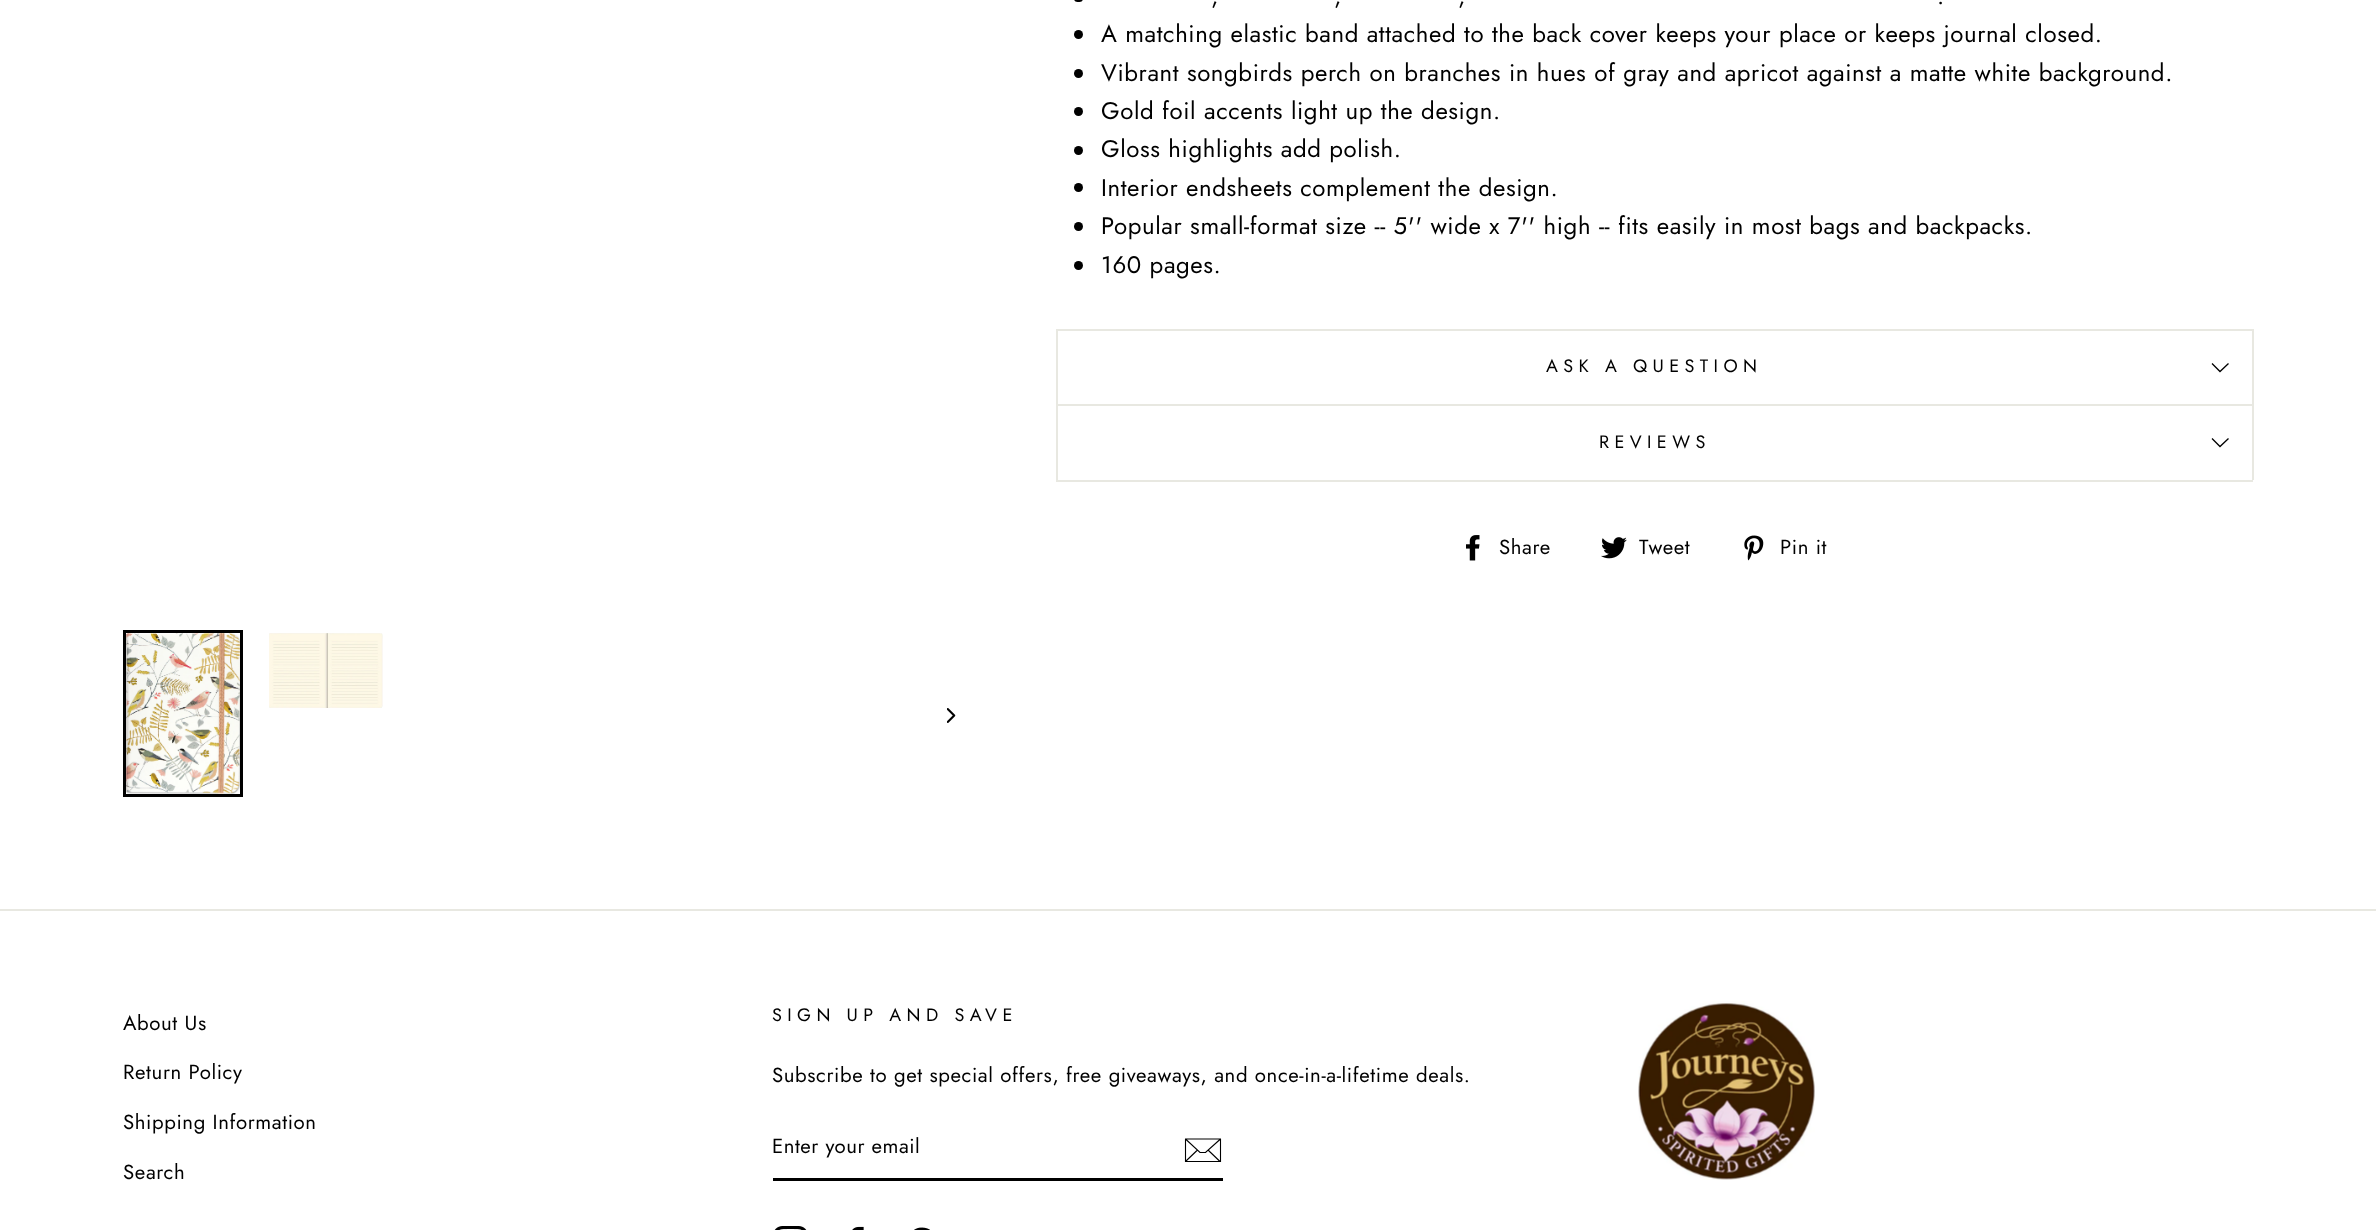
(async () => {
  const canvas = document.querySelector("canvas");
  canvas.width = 2376;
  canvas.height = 1230;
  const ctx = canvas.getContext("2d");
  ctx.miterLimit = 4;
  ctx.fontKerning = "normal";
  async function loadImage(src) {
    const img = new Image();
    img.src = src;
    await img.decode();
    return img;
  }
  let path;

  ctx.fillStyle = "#ffffff";
  ctx.fillRect(0, 0, 2376, 1230);
  ctx.fillStyle = "#000000";
  ctx.beginPath();
  ctx.roundRect(1074, -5, 9, 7, 4.5);
  ctx.fill();
  ctx.beginPath();
  ctx.arc(1078.5, 34.5, 4.5, 0, Math.PI * 2);
  ctx.fill();
  ctx.beginPath();
  ctx.arc(1078.5, 73.5, 4.5, 0, Math.PI * 2);
  ctx.fill();
  ctx.beginPath();
  ctx.arc(1078.5, 111.5, 4.5, 0, Math.PI * 2);
  ctx.fill();
  ctx.beginPath();
  ctx.arc(1078.5, 150.5, 4.5, 0, Math.PI * 2);
  ctx.fill();
  ctx.beginPath();
  ctx.arc(1078.5, 187.5, 4.5, 0, Math.PI * 2);
  ctx.fill();
  ctx.beginPath();
  ctx.arc(1078.5, 226.5, 4.5, 0, Math.PI * 2);
  ctx.fill();
  ctx.beginPath();
  ctx.arc(1078.5, 265.5, 4.5, 0, Math.PI * 2);
  ctx.fill();
  for (const [x, y, w, h, color] of [
    [1056, 480, 1197, 2, "#e8e8e1"],
    [1056, 329, 1197, 2, "#e8e8e1"],
    [2252, 329, 2, 75, "#e8e8e1"],
    [1056, 329, 2, 75, "#e8e8e1"],
  ]) {
    ctx.fillStyle = color;
    ctx.fillRect(x, y, w, h);
  }
  path = new Path2D("M2212 363.5L2220 371.5L2228.5 363.5");
  ctx.strokeStyle = "#000000";
  ctx.lineWidth = 1.3;
  ctx.stroke(path);
  for (const [x, y, w, h, color] of [
    [1056, 404, 1197, 2, "#e8e8e1"],
    [2252, 404, 2, 76, "#e8e8e1"],
    [1056, 404, 2, 76, "#e8e8e1"],
  ]) {
    ctx.fillStyle = color;
    ctx.fillRect(x, y, w, h);
  }
  path = new Path2D("M2212 438.5L2220 446.5L2228.5 438.5");
  ctx.stroke(path);
  ctx.drawImage(await loadImage("img/1.png"), 1466, 535, 14, 26);
  ctx.drawImage(await loadImage("img/2.png"), 1601, 537, 26, 22);
  ctx.drawImage(await loadImage("img/3.png"), 1744, 535, 20, 26);
  ctx.lineWidth = 3;
  ctx.strokeRect(124.5, 631.5, 117, 164);
  ctx.drawImage(await loadImage("img/4.png"), 126, 633, 114, 161);
  ctx.drawImage(await loadImage("img/5.png"), 269, 633, 114, 75);
  ctx.drawImage(await loadImage("img/6.png"), 947, 708, 9, 15);
  ctx.fillRect(0, 909, 2376, 2);
  ctx.fillStyle = "#000000";
  ctx.fillRect(773, 1178, 450, 3);
  path = new Path2D("M1220.5 1161.5H1185.5V1139H1220.5ZM1185.5 1139L1200 1152.5H1205.5L1220.5 1139M1197.5 1150L1186 1161M1220 1161.5L1208 1150");
  ctx.lineWidth = 1.1;
  ctx.stroke(path);
  ctx.drawImage(await loadImage("img/7.png"), 774, 1226, 33, 4);
  ctx.drawImage(await loadImage("img/8.png"), 852, 1226, 12, 4);
  ctx.drawImage(await loadImage("img/9.png"), 914, 1227, 16, 3);
  ctx.drawImage(await loadImage("img/10.png"), 1638, 1001, 177, 179);
  ctx.letterSpacing = "0.6px";
  ctx.font = "24px Jost";
  for (const [text, x, y] of [
    [",", 1211, 4],
    [",", 1334, 4],
    [",", 1458, 4],
    [".", 1937, 4],
    ["A matching elastic band attached to the back cover keeps your place or keeps journal closed.", 1101, 42],
    ["Vibrant songbirds perch on branches in hues of gray and apricot against a matte white background.", 1101, 81],
    ["Gold foil accents light up the design.", 1101, 119],
    ["Gloss highlights add polish.", 1101, 157],
    ["Interior endsheets complement the design.", 1101, 196],
    ["Popular small-format size -- 5'' wide x 7'' high -- fits easily in most bags and backpacks.", 1101, 234],
    ["160 pages.", 1101, 273],
  ]) {
    ctx.fillText(text, x, y);
  }
  ctx.letterSpacing = "5.4px";
  ctx.font = "18px Jost";
  ctx.fillText("ASK A QUESTION", 1546, 372);
  ctx.fillText("REVIEWS", 1599, 448);
  ctx.letterSpacing = "0.6px";
  ctx.font = "20.4px Jost";
  for (const [text, x, y] of [
    ["Share", 1499, 554],
    ["Tweet", 1639, 554],
    ["Pin it", 1780, 554],
    ["About Us", 123, 1030],
    ["Return Policy", 123, 1079],
    ["Shipping Information", 123, 1129],
    ["Search", 123, 1179],
  ]) {
    ctx.fillText(text, x, y);
  }
  ctx.letterSpacing = "5.4px";
  ctx.font = "18px Jost";
  ctx.fillText("SIGN UP AND SAVE", 772, 1021);
  ctx.letterSpacing = "0.6px";
  ctx.font = "20.4px Jost";
  ctx.fillText("Subscribe to get special offers, free giveaways, and once-in-a-lifetime deals.", 772, 1082);
  ctx.letterSpacing = "0.5px";
  ctx.fillText("Enter your email", 772, 1153);
})();
